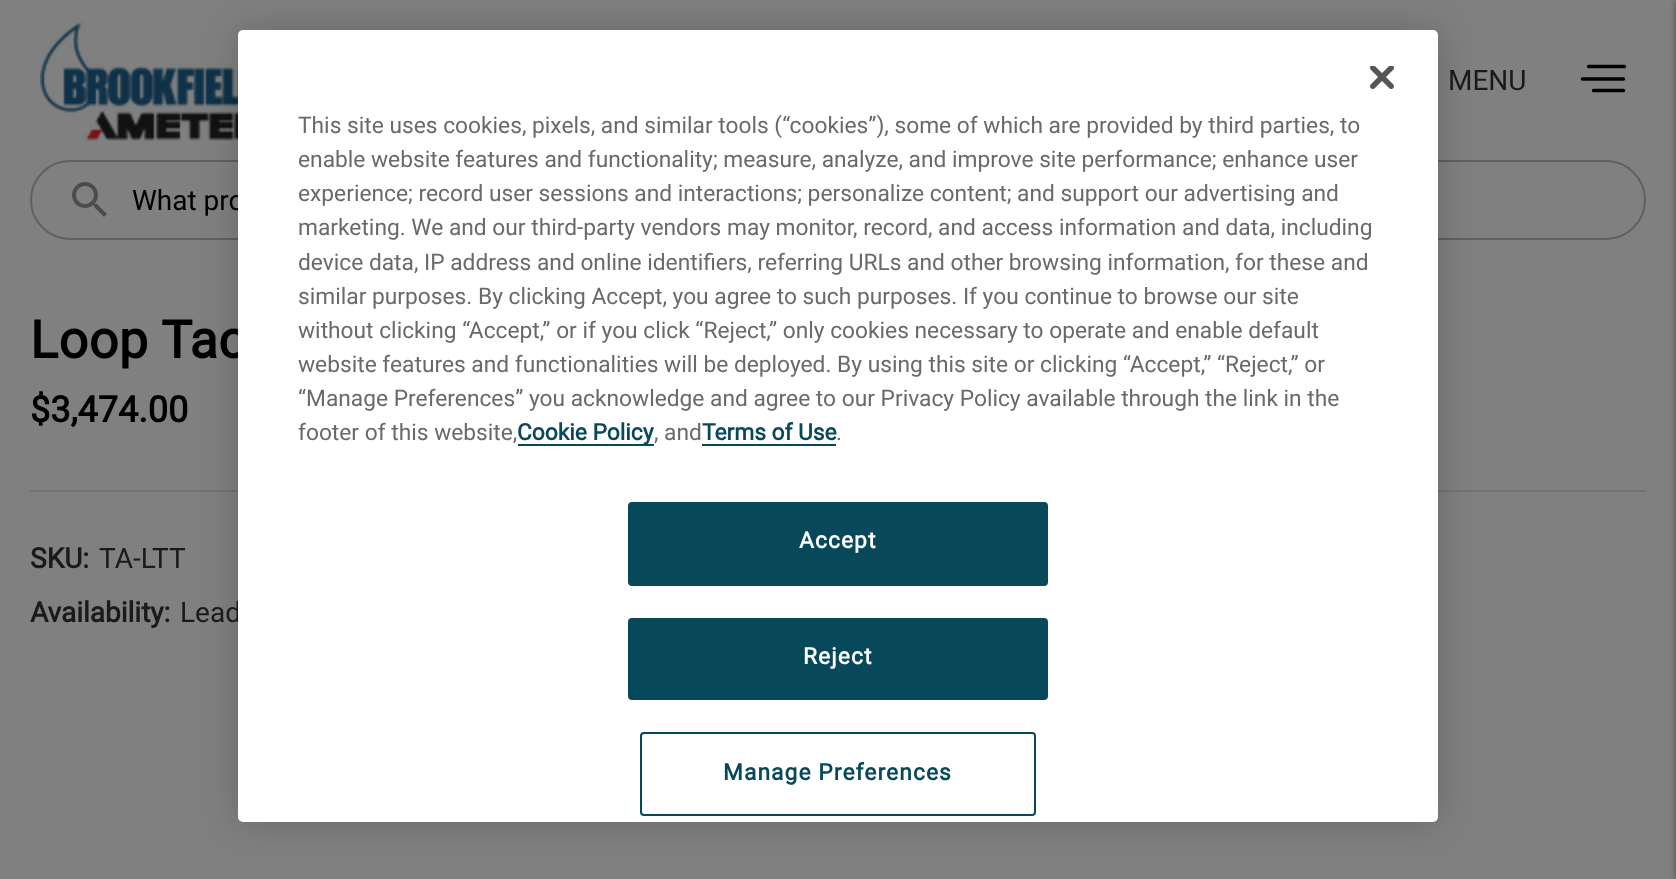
(async () => {
  const canvas = document.querySelector("canvas");
  canvas.width = 1676;
  canvas.height = 879;
  const ctx = canvas.getContext("2d");
  ctx.miterLimit = 4;
  ctx.fontKerning = "normal";
  async function loadImage(src) {
    const img = new Image();
    img.src = src;
    await img.decode();
    return img;
  }
  let path;

  ctx.fillStyle = "#808080";
  ctx.fillRect(0, 0, 1676, 879);
  ctx.drawImage(await loadImage("img/1.png"), 40, 21, 198, 120);
  path = new Path2D("M1582.5 79H1623.5M1588.5 66.5H1624.5M1593.5 90.5H1623.5");
  ctx.strokeStyle = "#000000";
  ctx.lineWidth = 3.4;
  ctx.lineCap = "round";
  ctx.lineJoin = "round";
  ctx.stroke(path);
  ctx.beginPath();
  ctx.roundRect(31, 161, 1614, 78, 39);
  ctx.strokeStyle = "#606060";
  ctx.lineWidth = 2;
  ctx.lineJoin = "miter";
  ctx.stroke();
  ctx.drawImage(await loadImage("img/2.png"), 72, 182, 35, 35);
  ctx.fillStyle = "rgba(0, 0, 0, 0.4)";
  ctx.filter = "blur(3px)";
  ctx.beginPath();
  ctx.rect(1676, 0, 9, 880);
  ctx.fill();
  ctx.filter = "none";
  ctx.fillStyle = "#737373";
  ctx.fillRect(30, 490, 1616, 2);
  ctx.fillStyle = "rgba(0, 0, 0, 0.2)";
  ctx.filter = "blur(18px)";
  ctx.beginPath();
  ctx.roundRect(238, 30, 1200, 792, 5);
  ctx.fill();
  ctx.filter = "none";
  ctx.font = "28px Roboto";
  ctx.fillStyle = "#1a1a1a";
  ctx.fillText("MENU", 1448, 90);
  ctx.fillStyle = "#000000";
  ctx.fillText("What pro", 132, 210);
  ctx.letterSpacing = "0.5px";
  ctx.font = "bold 52px Roboto";
  ctx.fillText("Loop Tac", 30, 358);
  ctx.letterSpacing = "0px";
  ctx.font = "bold 36px Roboto";
  ctx.fillText("$3,474.00", 30, 422);
  ctx.font = "bold 28px Roboto";
  ctx.fillStyle = "#1a1a1a";
  ctx.fillText("SKU:", 30, 568);
  ctx.font = "28px Roboto";
  ctx.fillText("TA-LTT", 99, 568);
  ctx.font = "bold 28px Roboto";
  ctx.fillText("Availability:", 30, 622);
  ctx.font = "28px Roboto";
  ctx.fillText("Lead", 180, 622);
  ctx.fillStyle = "#ffffff";
  ctx.beginPath();
  ctx.roundRect(238, 30, 1200, 792, 5);
  ctx.fill();
  ctx.drawImage(await loadImage("img/3.png"), 1370, 66, 24, 23);
  ctx.font = "22.75px Roboto";
  ctx.fillStyle = "#696969";
  for (const [text, x, y] of [
    ["This site uses cookies, pixels, and similar tools (“cookies”), some of which are provided by third parties, to", 298, 133],
    ["enable website features and functionality; measure, analyze, and improve site performance; enhance user", 298, 167],
    ["experience; record user sessions and interactions; personalize content; and support our advertising and", 298, 201],
    ["marketing. We and our third-party vendors may monitor, record, and access information and data, including", 298, 235],
    ["device data, IP address and online identifiers, referring URLs and other browsing information, for these and", 298, 270],
    ["similar purposes. By clicking Accept, you agree to such purposes. If you continue to browse our site", 298, 304],
    ["without clicking “Accept,” or if you click “Reject,” only cookies necessary to operate and enable default", 298, 338],
    ["website features and functionalities will be deployed. By using this site or clicking “Accept,” “Reject,” or", 298, 372],
    ["“Manage Preferences” you acknowledge and agree to our Privacy Policy available through the link in the", 298, 406],
    ["footer of this website,", 298, 440],
  ]) {
    ctx.fillText(text, x, y);
  }
  ctx.fillStyle = "#07485b";
  ctx.fillRect(518, 444, 136, 2);
  ctx.font = "bold 22.75px Roboto";
  ctx.fillText("Cookie Policy", 517, 440);
  ctx.font = "22.75px Roboto";
  ctx.fillStyle = "#696969";
  ctx.fillText(", and", 654, 440);
  ctx.font = "bold 22.75px Roboto";
  ctx.fillStyle = "#07485b";
  ctx.fillText("Terms of Use", 702, 440);
  ctx.fillRect(702, 444, 134, 2);
  ctx.font = "22.75px Roboto";
  ctx.fillStyle = "#696969";
  ctx.fillText(".", 836, 440);
  ctx.fillStyle = "#07485b";
  ctx.beginPath();
  ctx.roundRect(629, 503, 418, 82, 3);
  ctx.fill();
  ctx.strokeStyle = "#07485b";
  ctx.stroke();
  ctx.letterSpacing = "1.1px";
  ctx.font = "bold 22.75px Roboto";
  ctx.fillStyle = "#ffffff";
  ctx.fillText("Accept", 799, 548);
  ctx.fillStyle = "#07485b";
  ctx.beginPath();
  ctx.roundRect(629, 619, 418, 80, 3);
  ctx.fill();
  ctx.stroke();
  ctx.fillStyle = "#ffffff";
  ctx.fillText("Reject", 803, 664);
  ctx.beginPath();
  ctx.roundRect(641, 733, 394, 82, 3);
  ctx.stroke();
  ctx.fillStyle = "#07485b";
  ctx.fillText("Manage Preferences", 723, 780);
})();
